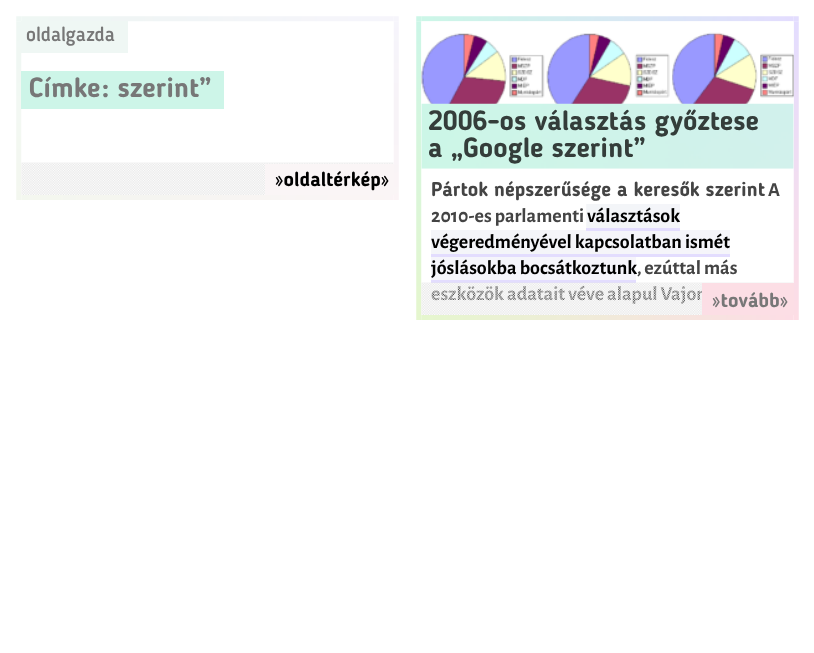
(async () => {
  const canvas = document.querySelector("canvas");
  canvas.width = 814;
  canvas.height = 653;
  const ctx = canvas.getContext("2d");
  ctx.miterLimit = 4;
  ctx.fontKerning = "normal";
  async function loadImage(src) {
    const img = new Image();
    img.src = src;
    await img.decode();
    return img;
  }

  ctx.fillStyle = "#ffffff";
  ctx.fillRect(0, 0, 814, 653);
  ctx.drawImage(await loadImage("img/1.png"), 16, 16, 383, 184);
  ctx.fillStyle = "#eff7f4";
  ctx.fillRect(21, 21, 107, 32);
  ctx.fillStyle = "#cdf5e8";
  ctx.fillRect(21, 71, 203, 38);
  ctx.drawImage(await loadImage("img/2.png"), 21, 162, 373, 33);
  ctx.fillStyle = "#faf5f6";
  ctx.fillRect(265, 164, 129, 31);
  ctx.drawImage(await loadImage("img/3.png"), 416, 16, 383, 304);
  ctx.drawImage(await loadImage("img/4.png"), 421, 21, 373, 109);
  ctx.drawImage(await loadImage("img/5.png"), 421, 103, 373, 66);
  ctx.fillStyle = "#e3ddfe";
  ctx.fillRect(431, 280, 205, 3);
  ctx.font = "500 20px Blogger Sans";
  ctx.fillStyle = "#777777";
  ctx.fillText("oldalgazda", 26, 41);
  ctx.font = "bold 27.5px Blogger Sans";
  ctx.fillText("Címke: szerint”", 29, 97);
  ctx.font = "bold 20px Blogger Sans";
  ctx.fillStyle = "#000000";
  ctx.fillText("»oldaltérkép»", 275, 186);
  ctx.font = "bold 27.5px Blogger Sans";
  ctx.fillStyle = "#343d3a";
  ctx.fillText("2006-os választás győztese", 428, 130);
  ctx.fillText("a „Google szerint”", 428, 157);
  ctx.font = "bold 20px Blogger Sans";
  ctx.fillStyle = "#444444";
  ctx.fillText("Pártok népszerűsége a keresők szerint", 431, 196);
  ctx.font = "bold 20px Alegreya Sans";
  ctx.fillText("A", 768, 196);
  ctx.fillText("2010-es parlamenti", 431, 222);
  ctx.drawImage(await loadImage("img/6.png"), 431, 204, 299, 76);
  ctx.fillStyle = "#000000";
  ctx.fillText("választások", 587, 222);
  ctx.fillText("végeredményével kapcsolatban ismét", 431, 248);
  ctx.fillStyle = "#e3ddfe";
  ctx.fillRect(586, 228, 94, 3);
  ctx.fillStyle = "#000000";
  ctx.fillText("jóslásokba bocsátkoztunk", 431, 274);
  ctx.fillStyle = "#444444";
  ctx.fillText(", ezúttal más", 637, 274);
  ctx.fillStyle = "#e3ddfe";
  ctx.fillRect(431, 254, 299, 3);
  ctx.fillStyle = "#444444";
  ctx.fillText("eszközök adatait véve alapul Vajon", 431, 300);
  ctx.drawImage(await loadImage("img/7.png"), 421, 282, 373, 33);
  ctx.fillStyle = "#fcdee5";
  ctx.fillRect(702, 283, 92, 32);
  ctx.font = "bold 20px Blogger Sans";
  ctx.fillStyle = "#777777";
  ctx.fillText("»tovább»", 712, 307);
})();
